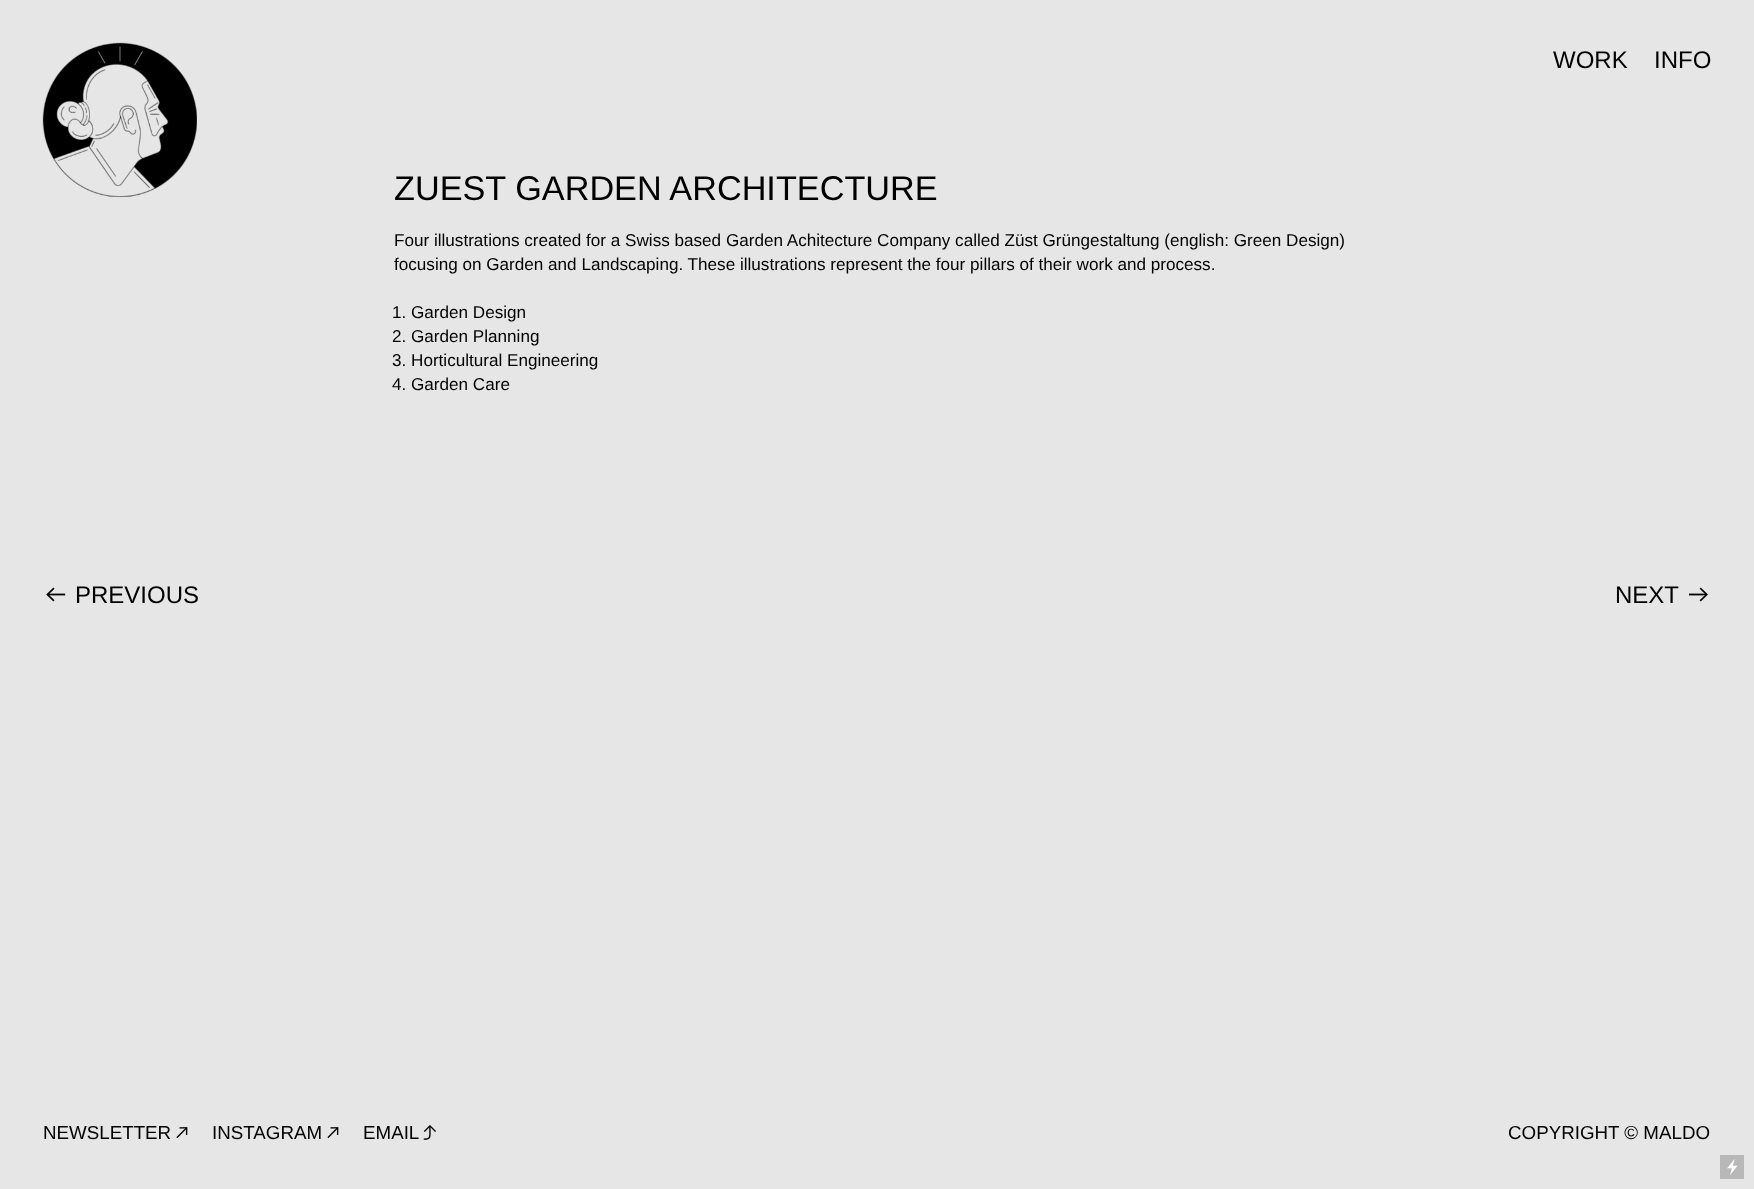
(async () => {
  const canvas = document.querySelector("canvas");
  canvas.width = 1754;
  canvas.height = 1189;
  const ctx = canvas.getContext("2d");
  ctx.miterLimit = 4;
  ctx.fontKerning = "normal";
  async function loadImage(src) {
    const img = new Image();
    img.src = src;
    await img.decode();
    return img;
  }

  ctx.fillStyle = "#e6e6e6";
  ctx.fillRect(0, 0, 1754, 1189);
  ctx.drawImage(await loadImage("img/1.png"), 42, 42, 155, 155);
  ctx.drawImage(await loadImage("img/2.png"), 46, 587, 20, 15);
  ctx.drawImage(await loadImage("img/3.png"), 1689, 587, 19, 15);
  ctx.drawImage(await loadImage("img/4.png"), 176, 1127, 12, 11);
  ctx.drawImage(await loadImage("img/4.png"), 327, 1127, 12, 11);
  ctx.drawImage(await loadImage("img/5.png"), 423, 1125, 13, 15);
  ctx.fillStyle = "#b8b8b8";
  ctx.fillRect(1720, 1155, 24, 24);
  ctx.drawImage(await loadImage("img/6.png"), 1727, 1159, 11, 16);
  ctx.font = "24px Liberation Sans";
  ctx.fillStyle = "#000000";
  ctx.fillText("WORK", 1553, 68);
  ctx.fillText("INFO", 1654, 68);
  ctx.font = "34.25px Liberation Sans";
  ctx.fillText("ZUEST GARDEN ARCHITECTURE", 394, 200);
  ctx.font = "17.12px Liberation Sans";
  for (const [text, x, y] of [
    ["Four illustrations created for a Swiss based Garden Achitecture Company called Züst Grüngestaltung (english: Green Design)", 394, 246],
    ["focusing on Garden and Landscaping. These illustrations represent the four pillars of their work and process.", 394, 270],
    ["1. Garden Design", 392, 318],
    ["2. Garden Planning", 392, 342],
    ["3. Horticultural Engineering", 392, 366],
    ["4. Garden Care", 392, 390],
  ]) {
    ctx.fillText(text, x, y);
  }
  ctx.font = "24px Liberation Sans";
  ctx.fillText("PREVIOUS", 75, 603);
  ctx.fillText("NEXT", 1615, 603);
  ctx.font = "18.75px Liberation Sans";
  for (const [text, x, y] of [
    ["NEWSLETTER", 43, 1139],
    ["INSTAGRAM", 212, 1139],
    ["EMAIL", 363, 1139],
    ["COPYRIGHT © MALDO", 1508, 1139],
  ]) {
    ctx.fillText(text, x, y);
  }
})();
